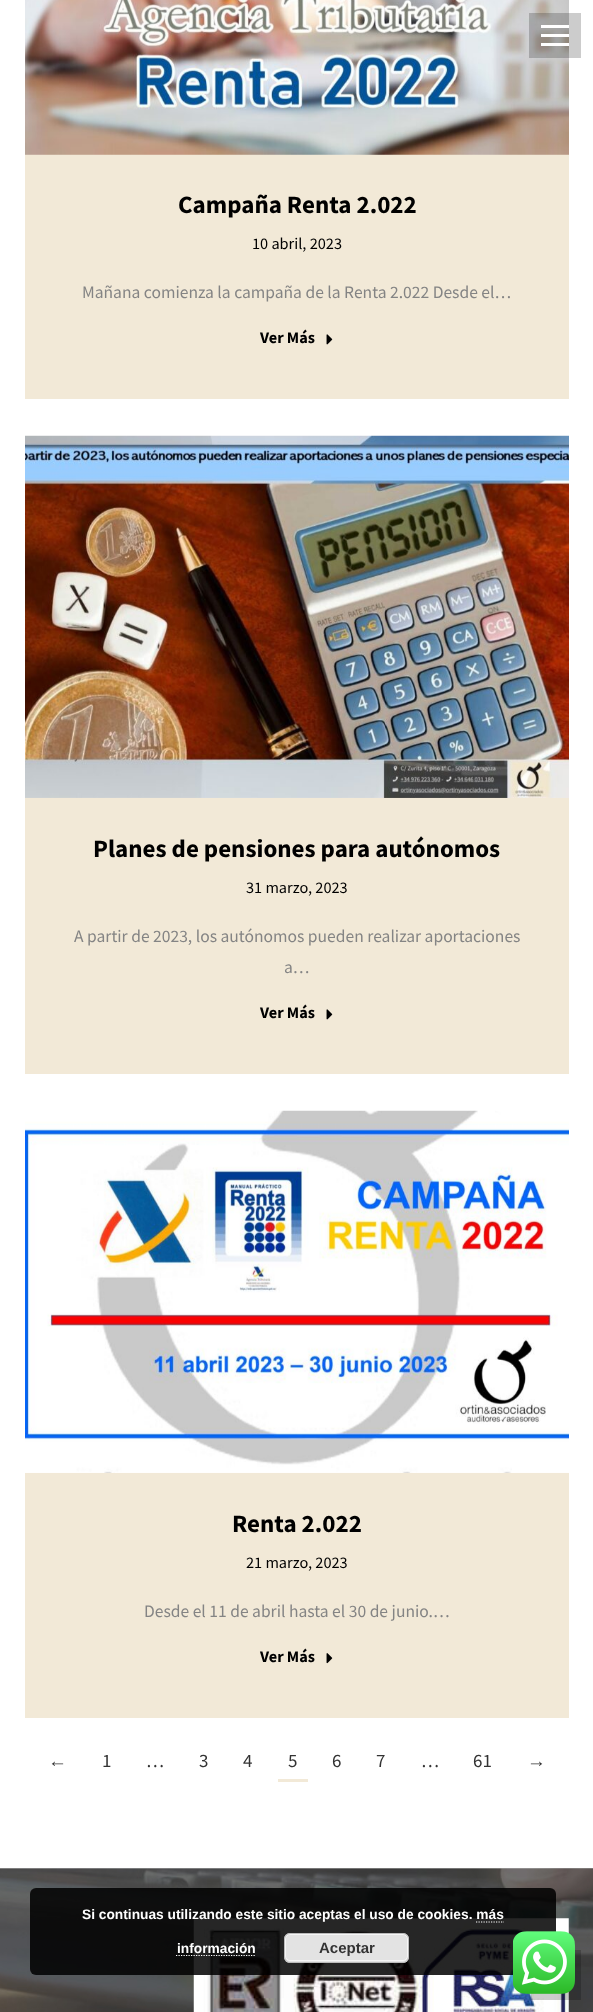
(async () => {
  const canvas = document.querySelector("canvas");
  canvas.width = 593;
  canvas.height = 2012;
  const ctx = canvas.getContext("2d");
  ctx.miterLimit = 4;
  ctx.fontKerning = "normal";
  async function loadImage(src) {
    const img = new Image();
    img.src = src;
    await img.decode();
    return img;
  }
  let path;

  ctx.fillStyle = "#ffffff";
  ctx.fillRect(0, 0, 593, 2012);
  ctx.fillStyle = "#f2e9d7";
  ctx.fillRect(25, 154, 544, 245);
  ctx.drawImage(await loadImage("img/1.png"), 25, 0, 544, 155);
  for (const [x, y, w, h, color] of [
    [529, 13, 52, 45, "rgba(0, 0, 0, 0.2)"],
    [541, 25, 28, 3, "#ffffff"],
    [541, 34, 28, 3, "#ffffff"],
    [541, 43, 28, 3, "#ffffff"],
  ]) {
    ctx.fillStyle = color;
    ctx.fillRect(x, y, w, h);
  }
  ctx.drawImage(await loadImage("img/2.png"), 326, 334, 7, 11);
  ctx.fillStyle = "#f2e9d7";
  ctx.fillRect(25, 797, 544, 277);
  ctx.drawImage(await loadImage("img/3.png"), 25, 435, 544, 363);
  ctx.drawImage(await loadImage("img/2.png"), 326, 1009, 7, 11);
  ctx.fillRect(25, 1472, 544, 246);
  ctx.drawImage(await loadImage("img/4.png"), 25, 1110, 544, 363);
  ctx.drawImage(await loadImage("img/5.png"), 326, 1653, 7, 11);
  ctx.fillRect(278, 1779, 30, 3);
  ctx.drawImage(await loadImage("img/6.png"), 0, 1868, 593, 144);
  ctx.drawImage(await loadImage("img/7.png"), 193, 1918, 376, 94);
  ctx.fillStyle = "rgba(0, 0, 0, 0.2)";
  ctx.fillRect(531, 1950, 50, 50);
  ctx.fillStyle = "rgba(0, 0, 0, 0.85)";
  ctx.beginPath();
  ctx.roundRect(30, 1888, 526, 87, 6);
  ctx.fill();
  path = new Path2D("M476 1922H504");
  ctx.strokeStyle = "#ffffff";
  ctx.lineWidth = 1.2;
  ctx.setLineDash([1.25, 1.25]);
  ctx.stroke(path);
  path = new Path2D("M176 1955.5H255");
  ctx.stroke(path);
  ctx.fillStyle = "#e3e3e3";
  ctx.beginPath();
  ctx.roundRect(284, 1933, 125, 30, 6);
  ctx.fill();
  ctx.beginPath();
  ctx.roundRect(285.5, 1934.5, 122, 26, 4.5);
  ctx.strokeStyle = "#f6f6f6";
  ctx.lineWidth = 1;
  ctx.setLineDash([]);
  ctx.stroke();
  ctx.beginPath();
  ctx.roundRect(284.5, 1933.5, 124, 29, 5.5);
  ctx.strokeStyle = "#bbbbbb";
  ctx.stroke();
  ctx.drawImage(await loadImage("img/8.png"), 513, 1931, 62, 63);
  ctx.font = "bold 25px Source Sans Pro";
  ctx.fillStyle = "#000000";
  ctx.fillText("Campaña Renta 2.022", 178, 213);
  ctx.font = "16.25px Source Sans Pro";
  ctx.fillText("10 abril, 2023", 252, 249);
  ctx.font = "17.5px Source Sans Pro";
  ctx.fillStyle = "#848484";
  ctx.fillText("Mañana comienza la campaña de la Renta 2.022 Desde el…", 82, 298);
  ctx.font = "bold 16.25px Source Sans Pro";
  ctx.fillStyle = "#000000";
  ctx.fillText("Ver Más", 260, 343);
  ctx.font = "bold 25px Source Sans Pro";
  ctx.fillText("Planes de pensiones para autónomos", 93, 857);
  ctx.font = "16.25px Source Sans Pro";
  ctx.fillText("31 marzo, 2023", 246, 893);
  ctx.font = "17.5px Source Sans Pro";
  ctx.fillStyle = "#848484";
  ctx.fillText("A partir de 2023, los autónomos pueden realizar aportaciones", 74, 942);
  ctx.fillText("a…", 284, 973);
  ctx.font = "bold 16.25px Source Sans Pro";
  ctx.fillStyle = "#000000";
  ctx.fillText("Ver Más", 260, 1018);
  ctx.font = "bold 25px Source Sans Pro";
  ctx.fillText("Renta 2.022", 232, 1532);
  ctx.font = "16.25px Source Sans Pro";
  ctx.fillText("21 marzo, 2023", 246, 1568);
  ctx.font = "17.5px Source Sans Pro";
  ctx.fillStyle = "#848484";
  ctx.fillText("Desde el 11 de abril hasta el 30 de junio.…", 144, 1617);
  ctx.font = "bold 16.25px Source Sans Pro";
  ctx.fillStyle = "#000000";
  ctx.fillText("Ver Más", 260, 1662);
  ctx.font = "19px Liberation Sans";
  ctx.fillStyle = "#333333";
  ctx.fillText("←", 48, 1767);
  ctx.font = "19px Source Sans Pro";
  for (const [text, x, y] of [
    ["1", 102, 1767],
    ["…", 146, 1767],
    ["3", 199, 1767],
    ["4", 243, 1767],
    ["5", 288, 1767],
    ["6", 332, 1767],
    ["7", 376, 1767],
    ["…", 421, 1767],
    ["61", 473, 1767],
  ]) {
    ctx.fillText(text, x, y);
  }
  ctx.font = "19px Liberation Sans";
  ctx.fillText("→", 527, 1767);
  ctx.font = "bold 13.75px Liberation Sans";
  ctx.fillStyle = "#ffffff";
  ctx.fillText("Si continuas utilizando este sitio aceptas el uso de cookies. más", 82, 1919);
  ctx.fillText("información", 177, 1953);
  ctx.font = "bold 15px Liberation Sans";
  ctx.fillStyle = "#333333";
  ctx.fillText("Aceptar", 319, 1953);
})();
